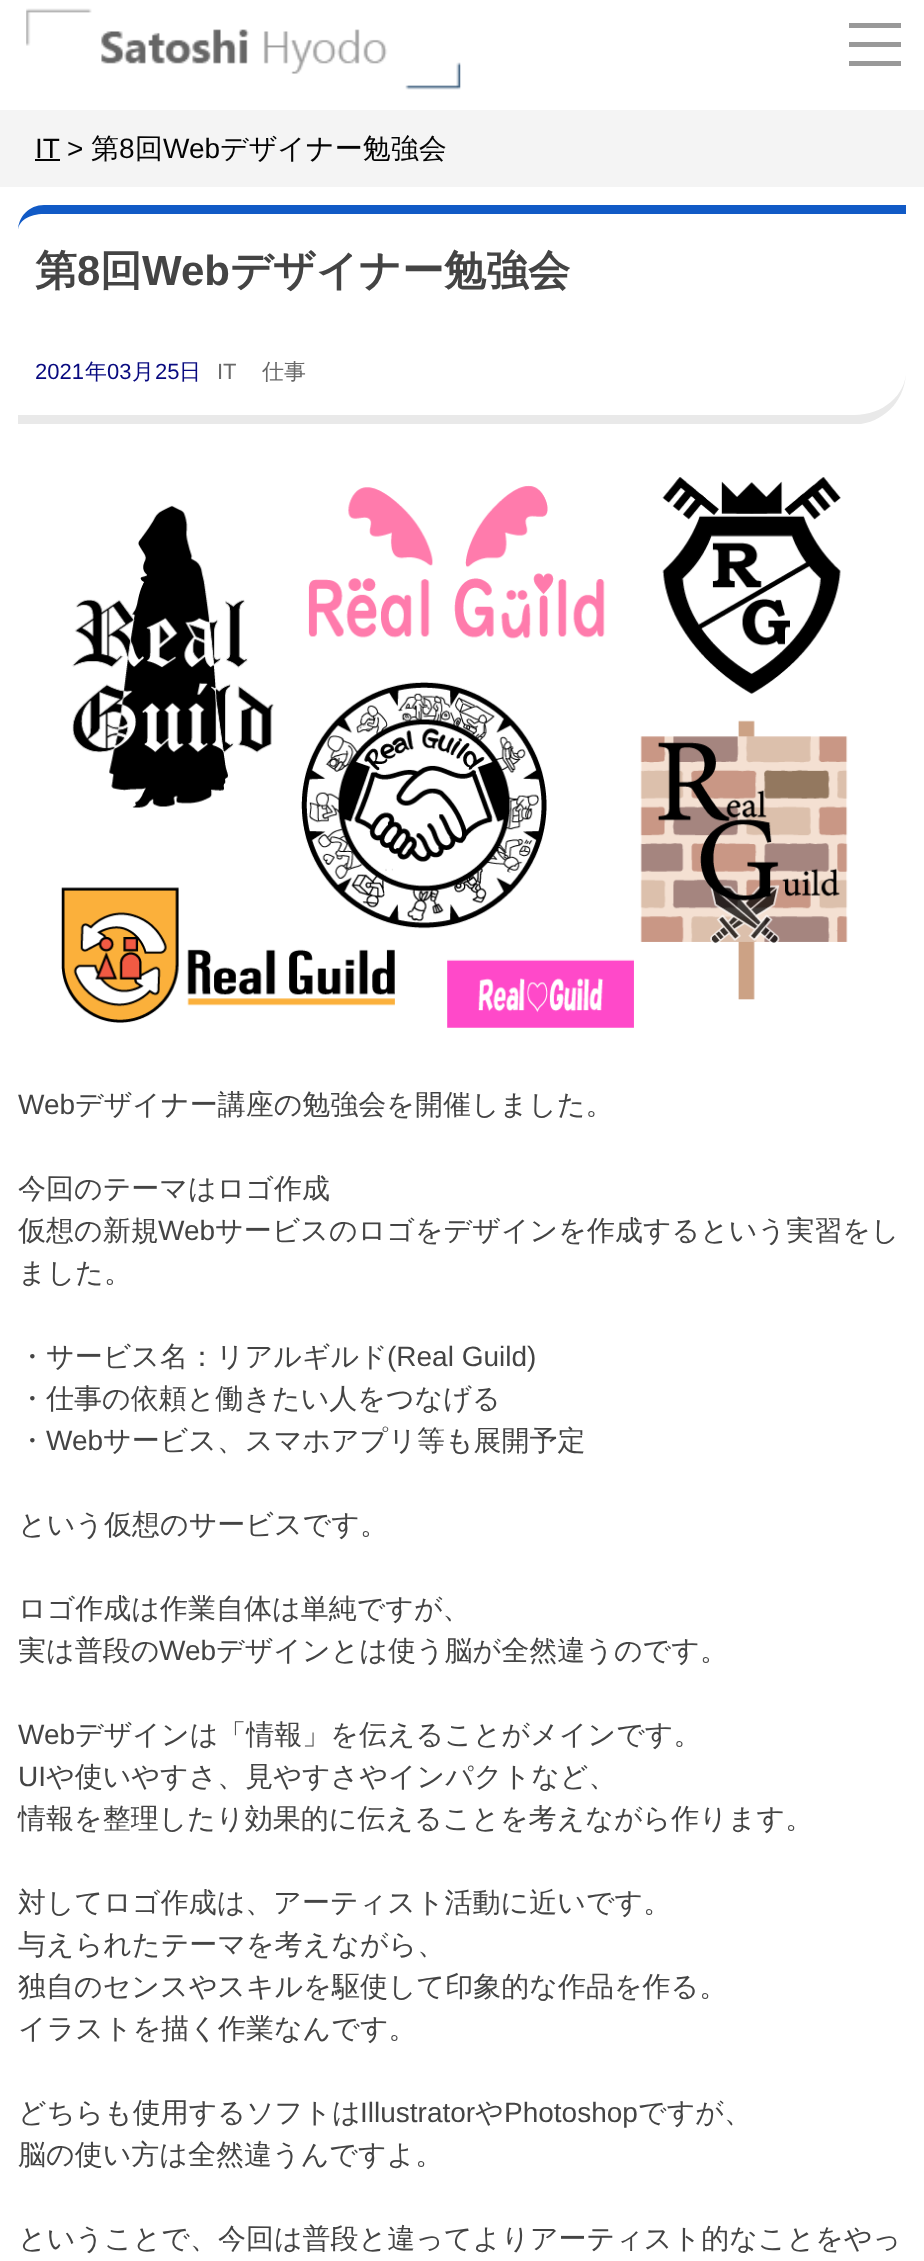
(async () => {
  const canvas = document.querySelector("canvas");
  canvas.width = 924;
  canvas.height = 2261;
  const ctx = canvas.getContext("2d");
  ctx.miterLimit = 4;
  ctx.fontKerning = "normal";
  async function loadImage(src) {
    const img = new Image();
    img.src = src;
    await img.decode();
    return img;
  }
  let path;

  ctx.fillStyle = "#ffffff";
  ctx.fillRect(0, 0, 924, 2261);
  ctx.drawImage(await loadImage("img/1.png"), 26, 8, 435, 82);
  for (const [x, y, w, h, color] of [
    [849, 23, 52, 5, "#999999"],
    [849, 42, 52, 5, "#999999"],
    [849, 61, 52, 5, "#999999"],
    [0, 110, 924, 77, "#f4f4f4"],
    [35, 159, 25, 2, "#040404"],
  ]) {
    ctx.fillStyle = color;
    ctx.fillRect(x, y, w, h);
  }
  ctx.fillStyle = "#115ac6";
  path = new Path2D("M44 205C29 205 18 217 18 231C18 221 29 214 44 214H906V205Z");
  ctx.fill(path);
  ctx.fillStyle = "#e9e9e9";
  path = new Path2D("M861 424C887 420 906 398 906 371C906 395 883 415 854 415H18V424Z");
  ctx.fill(path);
  ctx.drawImage(await loadImage("img/2.png"), 61, 477, 787, 551);
  ctx.font = "28px Liberation Sans";
  ctx.fillStyle = "#040404";
  ctx.fillText("IT", 35, 158);
  ctx.fillText(">", 67, 158);
  ctx.font = "500 28px WenQuanYi Zen Hei";
  ctx.fillText("第", 91, 158);
  ctx.font = "28px Liberation Sans";
  ctx.fillText("8", 119, 158);
  ctx.font = "500 28px WenQuanYi Zen Hei";
  ctx.fillText("回", 135, 158);
  ctx.font = "28px Liberation Sans";
  ctx.fillText("Web", 163, 158);
  ctx.font = "500 28px WenQuanYi Zen Hei";
  ctx.fillText("デザイナー勉強会", 220, 158);
  ctx.font = "bold 42px WenQuanYi Zen Hei";
  ctx.fillStyle = "#444444";
  ctx.fillText("第", 35, 285);
  ctx.font = "bold 42px Liberation Sans";
  ctx.fillText("8", 77, 285);
  ctx.font = "bold 42px WenQuanYi Zen Hei";
  ctx.fillText("回", 100, 285);
  ctx.font = "bold 42px Liberation Sans";
  ctx.fillText("Web", 142, 285);
  ctx.font = "bold 42px WenQuanYi Zen Hei";
  ctx.fillText("デザイナー勉強会", 230, 285);
  ctx.font = "22px Liberation Sans";
  ctx.fillStyle = "#07097f";
  ctx.fillText("2021", 35, 379);
  ctx.font = "500 22px WenQuanYi Zen Hei";
  ctx.fillText("年", 85, 379);
  ctx.font = "22px Liberation Sans";
  ctx.fillText("03", 107, 379);
  ctx.font = "500 22px WenQuanYi Zen Hei";
  ctx.fillText("月", 132, 379);
  ctx.font = "22px Liberation Sans";
  ctx.fillText("25", 155, 379);
  ctx.font = "500 22px WenQuanYi Zen Hei";
  ctx.fillText("日", 179, 379);
  ctx.font = "22px Liberation Sans";
  ctx.fillStyle = "#696969";
  ctx.fillText("IT", 217, 379);
  ctx.font = "500 22px WenQuanYi Zen Hei";
  ctx.fillText("仕事", 262, 379);
  ctx.font = "28px Liberation Sans";
  ctx.fillStyle = "#444444";
  ctx.fillText("Web", 18, 1114);
  ctx.font = "500 28px WenQuanYi Zen Hei";
  for (const [text, x, y] of [
    ["デザイナー講座の勉強会を開催しました。", 75, 1114],
    ["今回のテーマはロゴ作成", 18, 1198],
    ["仮想の新規", 18, 1240],
  ]) {
    ctx.fillText(text, x, y);
  }
  ctx.font = "28px Liberation Sans";
  ctx.fillText("Web", 158, 1240);
  ctx.font = "500 28px WenQuanYi Zen Hei";
  for (const [text, x, y] of [
    ["サービスのロゴをデザインを作成するという実習をし", 215, 1240],
    ["ました。", 18, 1282],
    ["・サービス名：リアルギルド", 18, 1366],
  ]) {
    ctx.fillText(text, x, y);
  }
  ctx.font = "28px Liberation Sans";
  ctx.fillText("(Real Guild)", 387, 1366);
  ctx.font = "500 28px WenQuanYi Zen Hei";
  ctx.fillText("・仕事の依頼と働きたい人をつなげる", 18, 1408);
  ctx.fillText("・", 18, 1450);
  ctx.font = "28px Liberation Sans";
  ctx.fillText("Web", 46, 1450);
  ctx.font = "500 28px WenQuanYi Zen Hei";
  for (const [text, x, y] of [
    ["サービス、スマホアプリ等も展開予定", 103, 1450],
    ["という仮想のサービスです。", 18, 1534],
    ["ロゴ作成は作業自体は単純ですが、", 18, 1618],
    ["実は普段の", 18, 1660],
  ]) {
    ctx.fillText(text, x, y);
  }
  ctx.font = "28px Liberation Sans";
  ctx.fillText("Web", 159, 1660);
  ctx.font = "500 28px WenQuanYi Zen Hei";
  ctx.fillText("デザインとは使う脳が全然違うのです。", 216, 1660);
  ctx.font = "28px Liberation Sans";
  ctx.fillText("Web", 18, 1744);
  ctx.font = "500 28px WenQuanYi Zen Hei";
  ctx.fillText("デザインは「情報」を伝えることがメインです。", 75, 1744);
  ctx.font = "28px Liberation Sans";
  ctx.fillText("UI", 18, 1786);
  ctx.font = "500 28px WenQuanYi Zen Hei";
  for (const [text, x, y] of [
    ["や使いやすさ、見やすさやインパクトなど、", 46, 1786],
    ["情報を整理したり効果的に伝えることを考えながら作ります。", 18, 1828],
    ["対してロゴ作成は、アーティスト活動に近いです。", 18, 1912],
    ["与えられたテーマを考えながら、", 18, 1954],
    ["独自のセンスやスキルを駆使して印象的な作品を作る。", 18, 1996],
    ["イラストを描く作業なんです。", 18, 2038],
    ["どちらも使用するソフトは", 18, 2122],
  ]) {
    ctx.fillText(text, x, y);
  }
  ctx.font = "28px Liberation Sans";
  ctx.fillText("Illustrator", 360, 2122);
  ctx.font = "500 28px WenQuanYi Zen Hei";
  ctx.fillText("や", 475, 2122);
  ctx.font = "28px Liberation Sans";
  ctx.fillText("Photoshop", 504, 2122);
  ctx.font = "500 28px WenQuanYi Zen Hei";
  for (const [text, x, y] of [
    ["ですが、", 638, 2122],
    ["脳の使い方は全然違うんですよ。", 18, 2164],
    ["ということで、今回は普段と違ってよりアーティスト的なことをやっ", 18, 2248],
  ]) {
    ctx.fillText(text, x, y);
  }
})();
